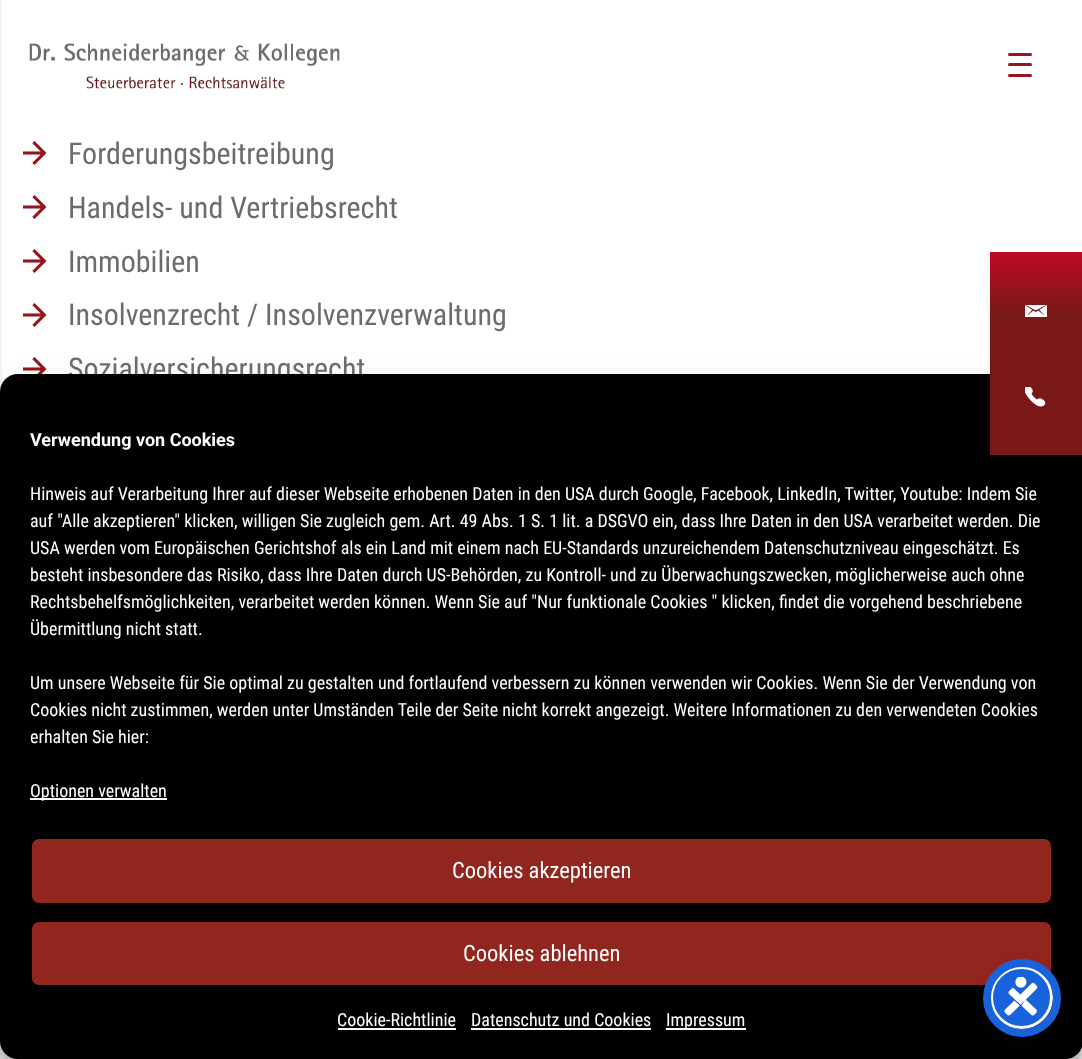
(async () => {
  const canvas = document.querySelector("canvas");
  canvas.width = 1082;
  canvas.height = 1059;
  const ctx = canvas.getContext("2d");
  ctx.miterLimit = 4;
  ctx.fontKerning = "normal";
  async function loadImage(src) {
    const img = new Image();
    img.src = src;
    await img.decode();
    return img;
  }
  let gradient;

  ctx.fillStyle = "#ffffff";
  ctx.fillRect(0, 0, 1082, 1059);
  ctx.fillStyle = "#f5f5f5";
  ctx.fillRect(0, 0, 2, 1059);
  ctx.fillStyle = "#f5f5f8";
  ctx.fillRect(0, 245, 2, 60);
  ctx.drawImage(await loadImage("img/1.png"), 29, 43, 311, 46);
  ctx.fillStyle = "#96141e";
  ctx.beginPath();
  ctx.roundRect(1008, 63, 24, 3, 1.5);
  ctx.fill();
  ctx.beginPath();
  ctx.roundRect(1008, 53, 24, 3, 1.5);
  ctx.fill();
  ctx.beginPath();
  ctx.roundRect(1008, 74, 24, 3, 1.5);
  ctx.fill();
  ctx.drawImage(await loadImage("img/2.png"), 23, 141, 24, 24);
  ctx.drawImage(await loadImage("img/2.png"), 23, 195, 24, 24);
  ctx.drawImage(await loadImage("img/2.png"), 23, 249, 24, 24);
  ctx.drawImage(await loadImage("img/2.png"), 23, 303, 24, 24);
  ctx.drawImage(await loadImage("img/3.png"), 23, 357, 24, 17);
  ctx.fillStyle = "rgba(0, 0, 0, 0.23)";
  ctx.filter = "blur(4.5px)";
  ctx.beginPath();
  ctx.roundRect(0, 383, 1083, 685, 18);
  ctx.fill();
  ctx.filter = "none";
  ctx.fillStyle = "rgba(0, 0, 0, 0.19)";
  ctx.filter = "blur(15px)";
  ctx.beginPath();
  ctx.roundRect(0, 389, 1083, 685, 18);
  ctx.fill();
  ctx.filter = "none";
  ctx.font = "30px Roboto Condensed";
  ctx.fillStyle = "#6c6c6c";
  for (const [text, x, y] of [
    ["Forderungsbeitreibung", 68, 164],
    ["Handels- und Vertriebsrecht", 68, 218],
    ["Immobilien", 68, 272],
    ["Insolvenzrecht / Insolvenzverwaltung", 68, 325],
    ["Sozialversicherungsrecht", 68, 379],
  ]) {
    ctx.fillText(text, x, y);
  }
  ctx.fillStyle = "#000000";
  ctx.beginPath();
  ctx.roundRect(0, 374, 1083, 685, 18);
  ctx.fill();
  gradient = ctx.createLinearGradient(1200, 252, 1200, 455);
  gradient.addColorStop(0, "#be0a26");
  gradient.addColorStop(0.3, "#7a1818");
  gradient.addColorStop(1, "#7a1818");
  ctx.fillStyle = gradient;
  ctx.fillRect(990, 252, 92, 203);
  ctx.drawImage(await loadImage("img/5.png"), 1025, 387, 21, 20);
  ctx.drawImage(await loadImage("img/4.png"), 1025, 305, 22, 12);
  ctx.font = "bold 18px Roboto";
  ctx.fillStyle = "#ffffff";
  ctx.fillText("Verwendung von Cookies", 30, 446);
  ctx.font = "18px Roboto Condensed";
  for (const [text, x, y] of [
    ["Hinweis auf Verarbeitung Ihrer auf dieser Webseite erhobenen Daten in den USA durch Google, Facebook, LinkedIn, Twitter, Youtube: Indem Sie", 30, 500],
    ["auf \"Alle akzeptieren\" klicken, willigen Sie zugleich gem. Art. 49 Abs. 1 S. 1 lit. a DSGVO ein, dass Ihre Daten in den USA verarbeitet werden. Die", 30, 527],
    ["USA werden vom Europäischen Gerichtshof als ein Land mit einem nach EU-Standards unzureichendem Datenschutzniveau eingeschätzt. Es", 30, 554],
    ["besteht insbesondere das Risiko, dass Ihre Daten durch US-Behörden, zu Kontroll- und zu Überwachungszwecken, möglicherweise auch ohne", 30, 581],
    ["Rechtsbehelfsmöglichkeiten, verarbeitet werden können. Wenn Sie auf \"Nur funktionale Cookies \" klicken, findet die vorgehend beschriebene", 30, 608],
    ["Übermittlung nicht statt.", 30, 635],
    ["Um unsere Webseite für Sie optimal zu gestalten und fortlaufend verbessern zu können verwenden wir Cookies. Wenn Sie der Verwendung von", 30, 689],
    ["Cookies nicht zustimmen, werden unter Umständen Teile der Seite nicht korrekt angezeigt. Weitere Informationen zu den verwendeten Cookies", 30, 716],
    ["erhalten Sie hier:", 30, 743],
  ]) {
    ctx.fillText(text, x, y);
  }
  ctx.fillRect(30, 798, 137, 2);
  ctx.fillText("Optionen verwalten", 30, 797);
  ctx.fillStyle = "#91261e";
  ctx.beginPath();
  ctx.roundRect(31, 838, 1021, 66, 8);
  ctx.fill();
  ctx.strokeStyle = "#000000";
  ctx.lineWidth = 2;
  ctx.stroke();
  ctx.font = "22.5px Roboto Condensed";
  ctx.fillStyle = "#ffffff";
  ctx.fillText("Cookies akzeptieren", 452, 878);
  ctx.fillStyle = "#91261e";
  ctx.beginPath();
  ctx.roundRect(31, 921, 1021, 65, 8);
  ctx.fill();
  ctx.stroke();
  ctx.fillStyle = "#ffffff";
  ctx.fillText("Cookies ablehnen", 463, 961);
  ctx.font = "18px Roboto Condensed";
  ctx.fillText("Cookie-Richtlinie", 337, 1026);
  ctx.fillRect(338, 1028, 118, 2);
  ctx.fillText("Datenschutz und Cookies", 471, 1026);
  ctx.fillRect(471, 1028, 180, 2);
  ctx.fillRect(666, 1028, 80, 2);
  ctx.fillText("Impressum", 666, 1026);
  ctx.fillStyle = "rgba(93, 100, 148, 0.2)";
  ctx.filter = "blur(3px)";
  ctx.beginPath();
  ctx.roundRect(990, 969, 63, 63, 31.5);
  ctx.fill();
  ctx.filter = "none";
  ctx.fillStyle = "rgba(37, 44, 97, 0.15)";
  ctx.filter = "blur(11px)";
  ctx.beginPath();
  ctx.roundRect(990, 974, 63, 63, 31.5);
  ctx.fill();
  ctx.filter = "none";
  ctx.fillStyle = "#1863dc";
  ctx.beginPath();
  ctx.arc(1021.5, 997.5, 30, 0, Math.PI * 2);
  ctx.fill();
  ctx.strokeStyle = "#ffffff";
  ctx.lineWidth = 3;
  ctx.stroke();
  ctx.beginPath();
  ctx.arc(1022, 998, 35, 0, Math.PI * 2);
  ctx.strokeStyle = "#1863dc";
  ctx.lineWidth = 8;
  ctx.stroke();
  ctx.drawImage(await loadImage("img/6.png"), 1004, 977, 34, 39);
})();
